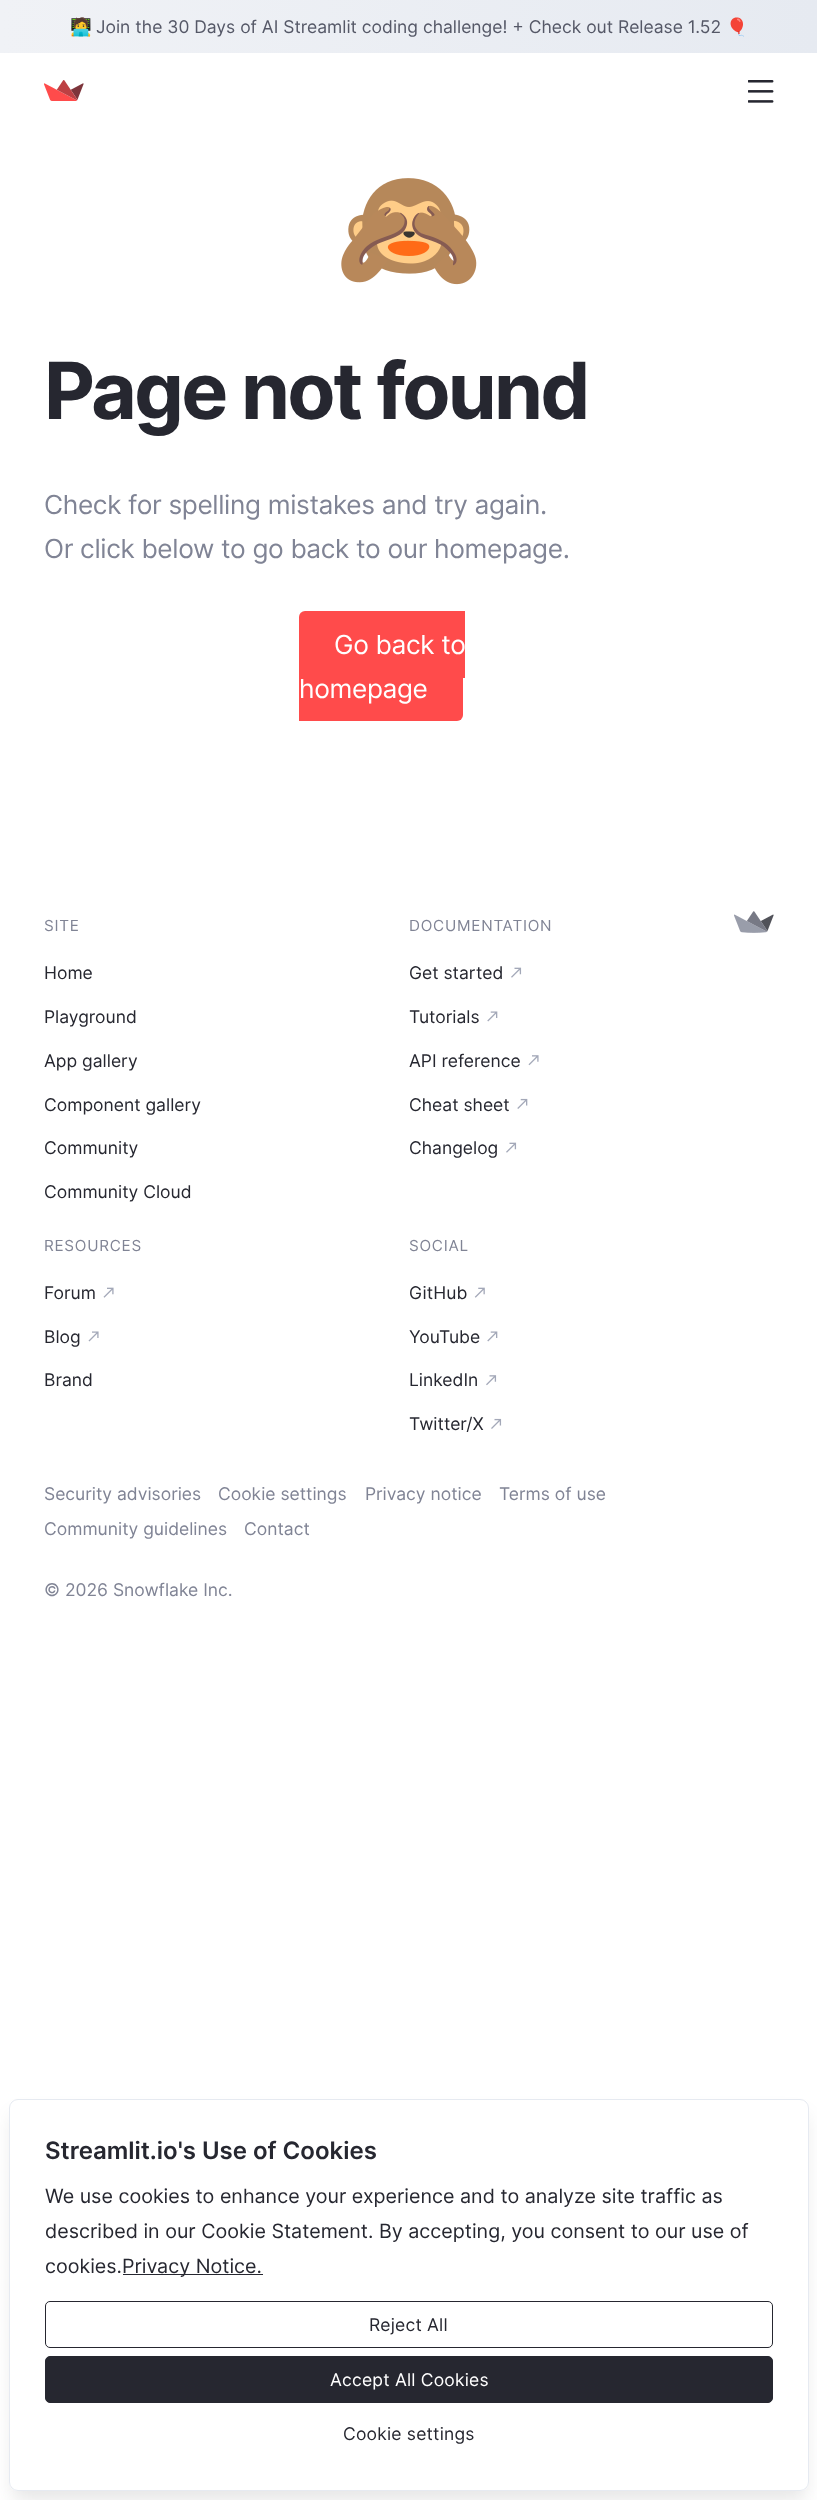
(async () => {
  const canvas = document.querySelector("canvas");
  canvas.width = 817;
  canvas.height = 2500;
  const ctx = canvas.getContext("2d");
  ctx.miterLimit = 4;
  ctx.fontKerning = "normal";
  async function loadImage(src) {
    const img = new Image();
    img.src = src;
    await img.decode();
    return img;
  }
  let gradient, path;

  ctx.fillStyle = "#ffffff";
  ctx.fillRect(0, 0, 817, 2500);
  gradient = ctx.createLinearGradient(0, 26, 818, 26);
  gradient.addColorStop(0, "#f0f2f6");
  gradient.addColorStop(1, "#e6eaf1");
  ctx.fillStyle = gradient;
  ctx.fillRect(0, 0, 817, 53);
  ctx.drawImage(await loadImage("img/1.png"), 44, 80, 40, 21);
  ctx.drawImage(await loadImage("img/2.png"), 748, 80, 26, 23);
  ctx.drawImage(await loadImage("img/3.png"), 341, 178, 136, 107);
  ctx.fillStyle = "#ff4b4b";
  ctx.beginPath();
  ctx.roundRect(299, 611, 166, 67, [6, 0, 0, 6]);
  ctx.fill();
  ctx.beginPath();
  ctx.roundRect(299, 655, 164, 66, [0, 6, 6, 0]);
  ctx.fill();
  ctx.drawImage(await loadImage("img/4.png"), 511, 967, 11, 11);
  ctx.drawImage(await loadImage("img/5.png"), 487, 1011, 11, 11);
  ctx.drawImage(await loadImage("img/6.png"), 528, 1055, 11, 11);
  ctx.drawImage(await loadImage("img/7.png"), 517, 1098, 11, 11);
  ctx.drawImage(await loadImage("img/4.png"), 506, 1142, 11, 11);
  ctx.drawImage(await loadImage("img/8.png"), 734, 911, 40, 22);
  ctx.drawImage(await loadImage("img/9.png"), 103, 1287, 11, 11);
  ctx.drawImage(await loadImage("img/10.png"), 88, 1331, 11, 11);
  ctx.drawImage(await loadImage("img/11.png"), 474, 1287, 11, 11);
  ctx.drawImage(await loadImage("img/5.png"), 487, 1331, 11, 11);
  ctx.drawImage(await loadImage("img/12.png"), 486, 1375, 11, 11);
  ctx.drawImage(await loadImage("img/13.png"), 491, 1418, 11, 11);
  ctx.save();
  path = new Path2D("M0 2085H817V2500H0ZM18 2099H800C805 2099 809 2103 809 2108V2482C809 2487 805 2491 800 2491H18C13 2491 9 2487 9 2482V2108C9 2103 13 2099 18 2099Z");
  ctx.clip(path, "evenodd");
  ctx.fillStyle = "rgba(0, 0, 0, 0.1)";
  ctx.filter = "blur(9.5px)";
  ctx.beginPath();
  ctx.roundRect(13, 2115, 792, 385, 5);
  ctx.fill();
  ctx.filter = "none";
  ctx.restore();
  ctx.beginPath();
  ctx.roundRect(9.5, 2099.5, 799, 391, 8.5);
  ctx.strokeStyle = "#e6eaf1";
  ctx.stroke();
  ctx.fillStyle = "#262730";
  ctx.fillRect(123, 2274, 140, 1);
  ctx.beginPath();
  ctx.roundRect(45.5, 2301.5, 727, 46, 4.5);
  ctx.strokeStyle = "#262730";
  ctx.stroke();
  ctx.beginPath();
  ctx.roundRect(45.5, 2356.5, 727, 46, 4.5);
  ctx.fill();
  ctx.stroke();
  ctx.font = "17.5px Noto Color Emoji";
  ctx.fillStyle = "#555867";
  ctx.fillText("🧑‍💻", 70, 33);
  ctx.font = "17.5px Inter";
  ctx.fillText("Join the 30 Days of AI Streamlit coding challenge! + Check out Release 1.52", 96, 33);
  ctx.font = "17.5px Noto Color Emoji";
  ctx.fillText("🎈", 726, 33);
  ctx.letterSpacing = "-2.75px";
  ctx.font = "bold 78.75px Inter";
  ctx.fillStyle = "#262730";
  ctx.fillText("Page not found", 44, 419);
  ctx.letterSpacing = "-0.35px";
  ctx.font = "26.25px Inter";
  ctx.fillStyle = "#808495";
  ctx.fillText("Check for spelling mistakes and try again.", 44, 514);
  ctx.fillText("Or click below to go back to our homepage.", 44, 558);
  ctx.fillStyle = "#ffffff";
  ctx.fillText("Go back to", 334, 654);
  ctx.fillText("homepage", 299, 698);
  ctx.letterSpacing = "0.75px";
  ctx.font = "15.25px Inter";
  ctx.fillStyle = "#808495";
  ctx.fillText("SITE", 44, 931);
  ctx.letterSpacing = "0px";
  ctx.font = "17.5px Inter";
  ctx.fillStyle = "#262730";
  for (const [text, x, y] of [
    ["Home", 44, 979],
    ["Playground", 44, 1023],
    ["App gallery", 44, 1067],
    ["Component gallery", 44, 1111],
    ["Community", 44, 1154],
    ["Community Cloud", 44, 1198],
  ]) {
    ctx.fillText(text, x, y);
  }
  ctx.letterSpacing = "0.75px";
  ctx.font = "15.25px Inter";
  ctx.fillStyle = "#808495";
  ctx.fillText("DOCUMENTATION", 409, 931);
  ctx.letterSpacing = "0px";
  ctx.font = "17.5px Inter";
  ctx.fillStyle = "#262730";
  for (const [text, x, y] of [
    ["Get started", 409, 979],
    ["Tutorials", 409, 1023],
    ["API reference", 409, 1067],
    ["Cheat sheet", 409, 1111],
    ["Changelog", 409, 1154],
  ]) {
    ctx.fillText(text, x, y);
  }
  ctx.letterSpacing = "0.75px";
  ctx.font = "15.25px Inter";
  ctx.fillStyle = "#808495";
  ctx.fillText("RESOURCES", 44, 1251);
  ctx.letterSpacing = "0px";
  ctx.font = "17.5px Inter";
  ctx.fillStyle = "#262730";
  for (const [text, x, y] of [
    ["Forum", 44, 1299],
    ["Blog", 44, 1343],
    ["Brand", 44, 1386],
  ]) {
    ctx.fillText(text, x, y);
  }
  ctx.letterSpacing = "0.75px";
  ctx.font = "15.25px Inter";
  ctx.fillStyle = "#808495";
  ctx.fillText("SOCIAL", 409, 1251);
  ctx.letterSpacing = "0px";
  ctx.font = "17.5px Inter";
  ctx.fillStyle = "#262730";
  for (const [text, x, y] of [
    ["GitHub", 409, 1299],
    ["YouTube", 409, 1343],
    ["LinkedIn", 409, 1386],
    ["Twitter/X", 409, 1430],
  ]) {
    ctx.fillText(text, x, y);
  }
  ctx.fillStyle = "#808495";
  for (const [text, x, y] of [
    ["Security advisories", 44, 1500],
    ["Cookie settings", 218, 1500],
    ["Privacy notice", 365, 1500],
    ["Terms of use", 499, 1500],
    ["Community guidelines", 44, 1535],
    ["Contact", 244, 1535],
    ["© 2026 Snowflake Inc.", 44, 1596],
  ]) {
    ctx.fillText(text, x, y);
  }
  ctx.font = "600 24px Inter";
  ctx.fillStyle = "#262730";
  ctx.fillText("Streamlit.io's Use of Cookies", 45, 2159);
  ctx.font = "19.7px Inter";
  for (const [text, x, y] of [
    ["We use cookies to enhance your experience and to analyze site traffic as", 45, 2203],
    ["described in our Cookie Statement. By accepting, you consent to our use of", 45, 2238],
    ["cookies.", 45, 2273],
    ["Privacy Notice.", 122, 2273],
  ]) {
    ctx.fillText(text, x, y);
  }
  ctx.letterSpacing = "0.2px";
  ctx.font = "17.5px Inter";
  ctx.fillText("Reject All", 369, 2331);
  ctx.fillStyle = "#ffffff";
  ctx.fillText("Accept All Cookies", 330, 2386);
  ctx.fillStyle = "#262730";
  ctx.fillText("Cookie settings", 343, 2440);
})();
